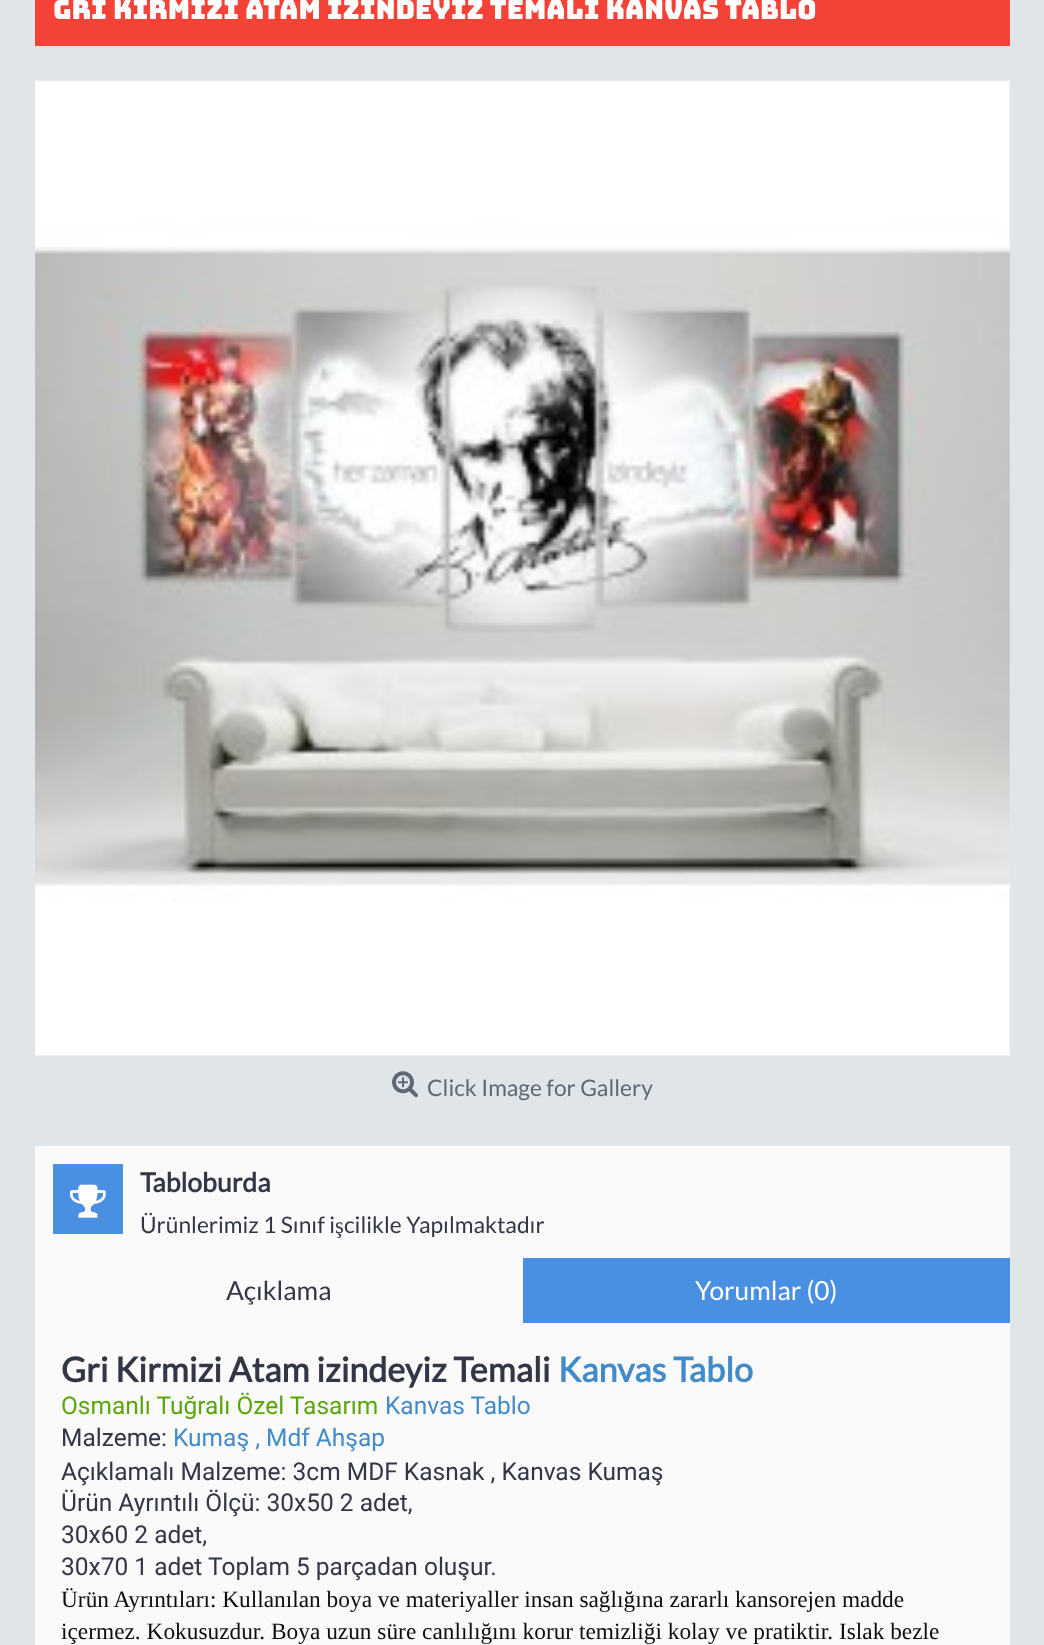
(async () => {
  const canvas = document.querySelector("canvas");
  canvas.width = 1044;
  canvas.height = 1645;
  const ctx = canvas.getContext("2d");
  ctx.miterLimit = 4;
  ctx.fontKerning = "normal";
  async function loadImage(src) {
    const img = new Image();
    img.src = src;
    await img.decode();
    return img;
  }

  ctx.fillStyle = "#dfe5e8";
  ctx.fillRect(0, 0, 1044, 1645);
  ctx.fillStyle = "#f44336";
  ctx.fillRect(35, 0, 975, 46);
  ctx.drawImage(await loadImage("img/1.png"), 35, 80, 975, 976);
  ctx.drawImage(await loadImage("img/2.png"), 392, 1071, 26, 27);
  ctx.fillStyle = "#fafafa";
  ctx.fillRect(35, 1146, 975, 112);
  ctx.fillStyle = "#4a90e2";
  ctx.fillRect(53, 1164, 70, 70);
  ctx.drawImage(await loadImage("img/3.png"), 70, 1184, 36, 34);
  for (const [x, y, w, h, color] of [
    [35, 1258, 488, 65, "#fafafa"],
    [523, 1258, 487, 65, "#4a90e2"],
    [35, 1323, 975, 322, "#fafafa"],
  ]) {
    ctx.fillStyle = color;
    ctx.fillRect(x, y, w, h);
  }
  ctx.font = "26.25px Bungee";
  ctx.fillStyle = "#ffffff";
  ctx.fillText("Gri Kirmizi Atam izindeyiz Temali Kanvas Tablo", 53, 19);
  ctx.font = "22.75px Lato";
  ctx.fillStyle = "#5f6874";
  ctx.fillText("Click Image for Gallery", 427, 1096);
  ctx.font = "bold 26.5px Lato";
  ctx.fillStyle = "#333745";
  ctx.fillText("Tabloburda", 140, 1192);
  ctx.font = "22.75px Lato";
  ctx.fillText("Ürünlerimiz 1 Sınıf i", 140, 1233);
  ctx.font = "22.75px Liberation Serif";
  ctx.fillText("ş", 335, 1233);
  ctx.font = "22.75px Lato";
  ctx.fillText("cilikle Yapılmaktadır", 344, 1233);
  ctx.font = "26.25px Lato";
  ctx.fillText("Açıklama", 226, 1300);
  ctx.fillStyle = "#ffffff";
  ctx.fillText("Yorumlar (0)", 695, 1300);
  ctx.font = "bold 34.1px Lato";
  ctx.fillStyle = "#333745";
  ctx.fillText("Gri Kirmizi Atam izindeyiz Temali", 61, 1382);
  ctx.fillStyle = "#428bca";
  ctx.fillText("Kanvas Tablo", 558, 1382);
  ctx.font = "24.5px Roboto";
  ctx.fillStyle = "#5aa70a";
  ctx.fillText("Osmanlı Tuğralı Özel Tasarım", 61, 1414);
  ctx.fillStyle = "#428bca";
  ctx.fillText("Kanvas Tablo", 385, 1414);
  ctx.fillStyle = "#333745";
  ctx.fillText("Malzeme:", 61, 1446);
  ctx.fillStyle = "#428bca";
  ctx.fillText("Kumaş , Mdf Ahşap", 173, 1446);
  ctx.fillStyle = "#333745";
  for (const [text, x, y] of [
    ["Açıklamalı Malzeme: 3cm MDF Kasnak , Kanvas Kumaş", 61, 1480],
    ["Ürün Ayrıntılı Ölçü: 30x50 2 adet,", 61, 1511],
    ["30x60 2 adet,", 61, 1543],
    ["30x70 1 adet", 61, 1575],
    ["Toplam 5 parçadan oluşur.", 208, 1575],
  ]) {
    ctx.fillText(text, x, y);
  }
  ctx.font = "23.35px Liberation Serif";
  ctx.fillStyle = "#0d0d0d";
  ctx.fillText("Ürün Ayrıntıları: Kullanılan boya ve materiyaller insan sağlığına zararlı kansorejen madde", 61, 1607);
  ctx.fillText("içermez. Kokusuzdur. Boya uzun süre canlılığını korur temizliği kolay ve pratiktir. Islak bezle", 61, 1639);
})();
